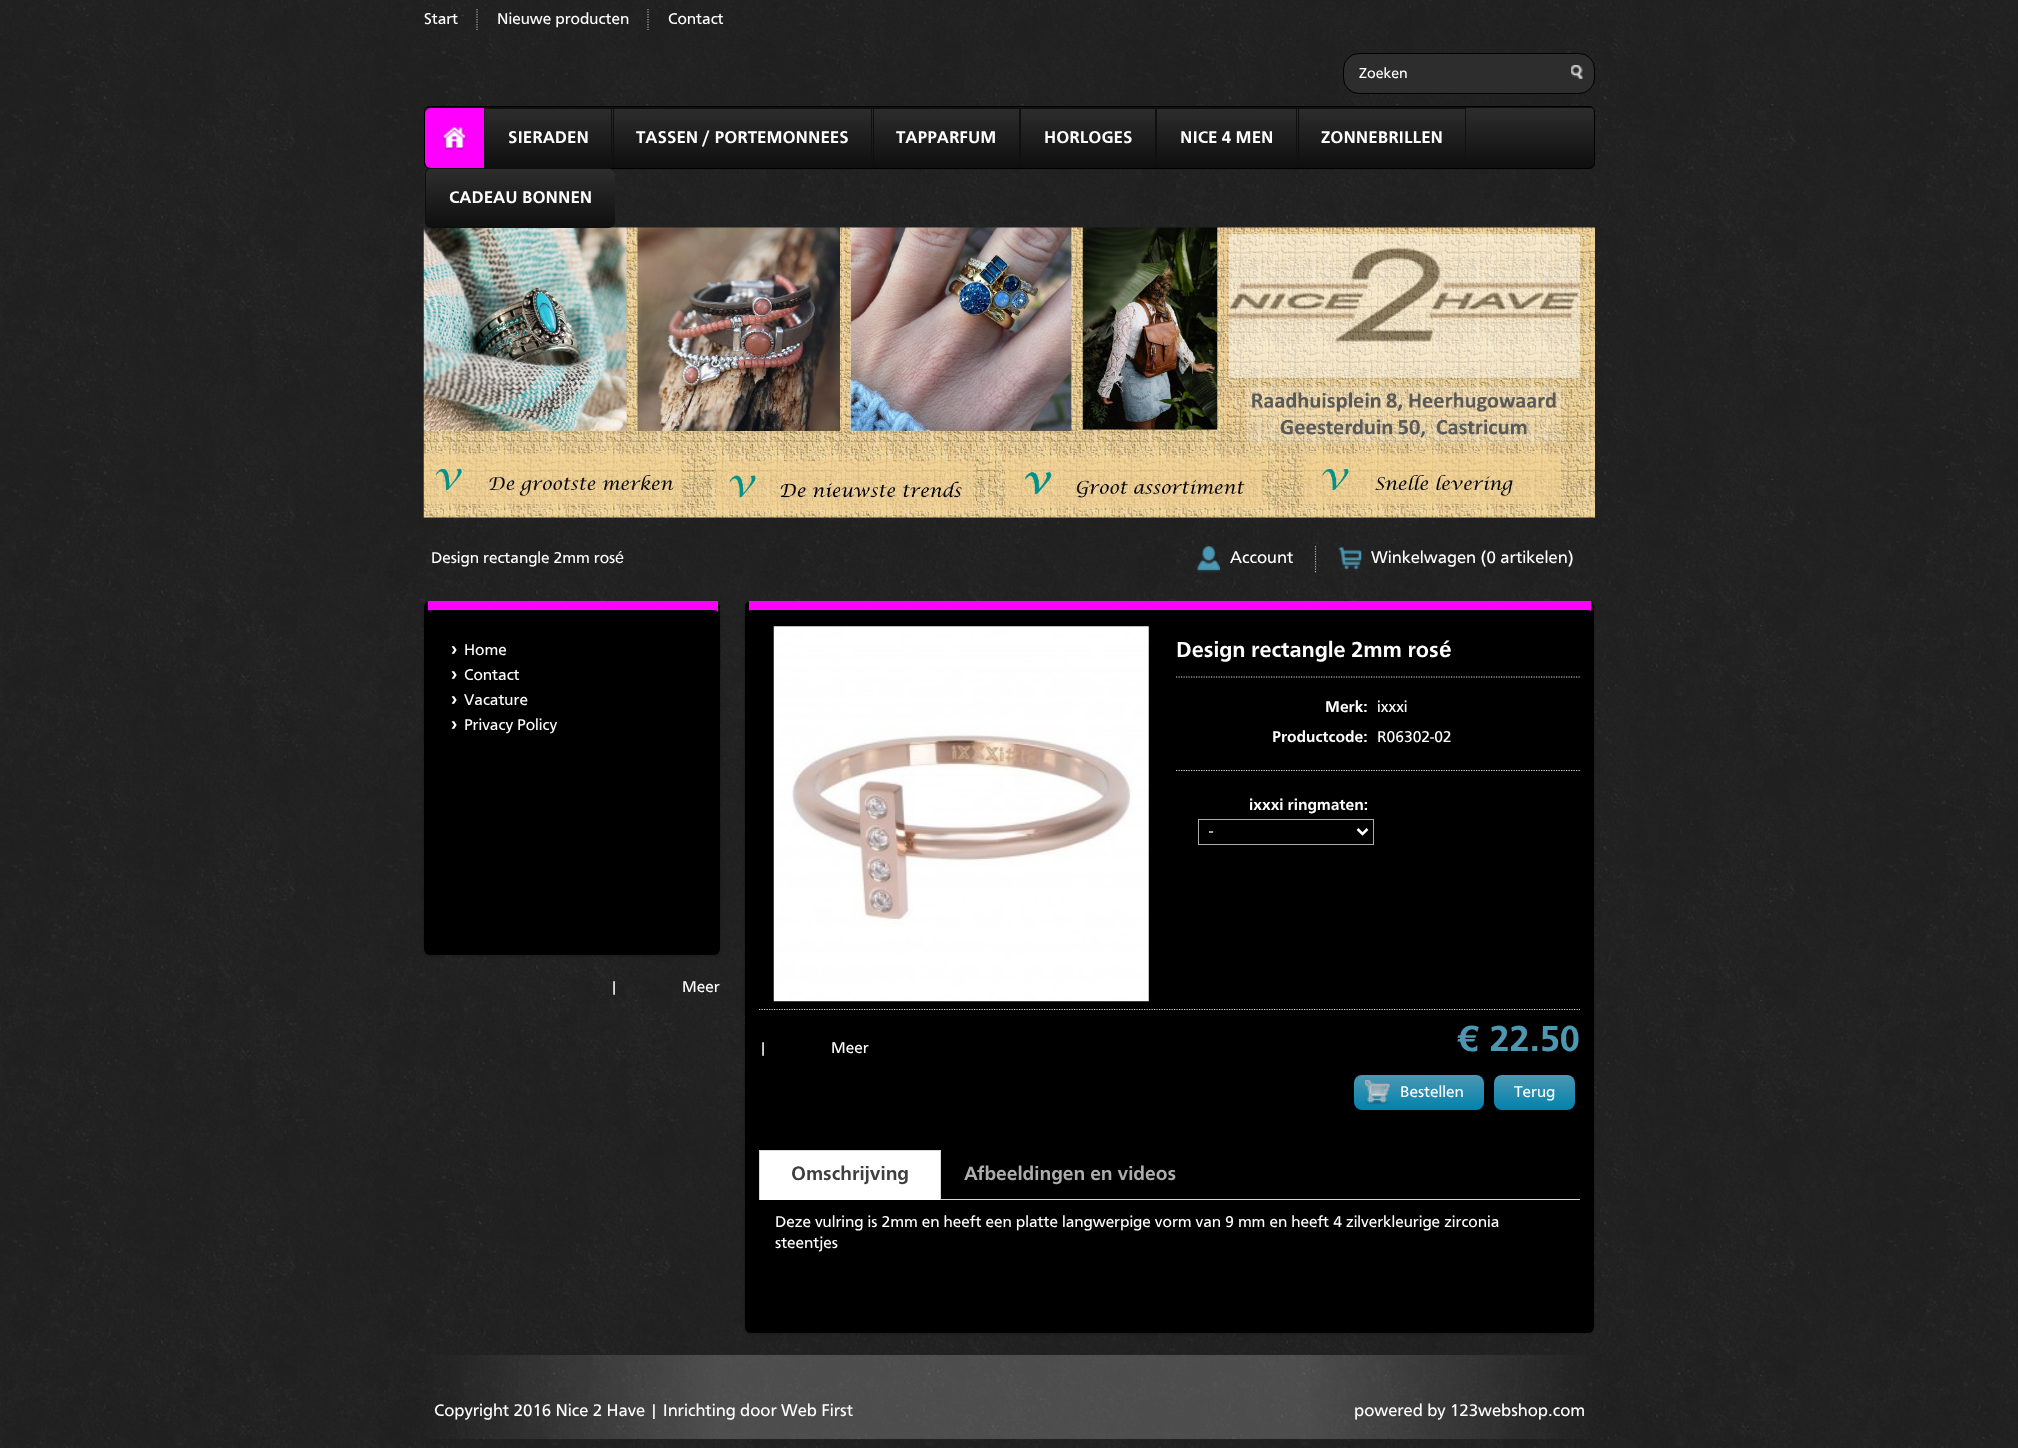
(async () => {
  const canvas = document.querySelector("canvas");
  canvas.width = 2018;
  canvas.height = 1448;
  const ctx = canvas.getContext("2d");
  ctx.miterLimit = 4;
  ctx.fontKerning = "normal";
  async function loadImage(src) {
    const img = new Image();
    img.src = src;
    await img.decode();
    return img;
  }
  let gradient, path;

  ctx.fillStyle = "#ffffff";
  ctx.fillRect(0, 0, 2018, 1448);
  ctx.drawImage(await loadImage("img/1.png"), 0, 0, 2018, 1448);
  path = new Path2D("M477 9V30");
  ctx.strokeStyle = "#acacac";
  ctx.lineWidth = 1.2;
  ctx.setLineDash([1.25, 1.25]);
  ctx.stroke(path);
  path = new Path2D("M648 9V30");
  ctx.stroke(path);
  ctx.fillStyle = "#2d2d2d";
  ctx.beginPath();
  ctx.roundRect(1343.5, 53.5, 251, 40, 15.5);
  ctx.fill();
  ctx.strokeStyle = "#000000";
  ctx.lineWidth = 1;
  ctx.setLineDash([]);
  ctx.stroke();
  ctx.drawImage(await loadImage("img/2.png"), 1571, 65, 12, 14);
  ctx.save();
  ctx.beginPath();
  ctx.roundRect(424, 106, 1171, 63, 6);
  ctx.clip();
  gradient = ctx.createLinearGradient(1009, 47, 1009, 108);
  gradient.addColorStop(0, "#2d2d2d");
  gradient.addColorStop(1, "#0f0f0f");
  ctx.fillStyle = gradient;
  ctx.fillRect(424, 106, 1171, 2);
  gradient = ctx.createLinearGradient(1009, 107, 1009, 168);
  gradient.addColorStop(0, "#2d2d2d");
  gradient.addColorStop(1, "#0f0f0f");
  ctx.fillStyle = gradient;
  ctx.fillRect(424, 108, 1171, 60);
  ctx.restore();
  ctx.beginPath();
  ctx.roundRect(424.5, 106.5, 1170, 62, 5.5);
  ctx.stroke();
  ctx.fillStyle = "#ff00ff";
  ctx.beginPath();
  ctx.roundRect(425, 108, 59, 60, [6, 0, 0, 6]);
  ctx.fill();
  ctx.fillRect(429, 108, 2, 1);
  ctx.drawImage(await loadImage("img/3.png"), 442, 127, 25, 23);
  gradient = ctx.createLinearGradient(548, 50, 548, 109);
  gradient.addColorStop(0, "#2d2d2d");
  gradient.addColorStop(1, "#0f0f0f");
  ctx.fillStyle = gradient;
  ctx.fillRect(484, 108, 129, 1);
  ctx.fillStyle = "#111111";
  ctx.fillRect(611, 108, 1, 51);
  ctx.fillStyle = "#0f0f0f";
  ctx.fillRect(484, 108, 1, 60);
  gradient = ctx.createLinearGradient(743, 50, 743, 109);
  gradient.addColorStop(0, "#2d2d2d");
  gradient.addColorStop(1, "#0f0f0f");
  ctx.fillStyle = gradient;
  ctx.fillRect(613, 108, 260, 1);
  ctx.fillStyle = "#111111";
  ctx.fillRect(871, 108, 1, 51);
  ctx.fillStyle = "#0f0f0f";
  ctx.fillRect(613, 108, 1, 60);
  gradient = ctx.createLinearGradient(946, 50, 946, 109);
  gradient.addColorStop(0, "#2d2d2d");
  gradient.addColorStop(1, "#0f0f0f");
  ctx.fillStyle = gradient;
  ctx.fillRect(873, 108, 147, 1);
  ctx.fillStyle = "#111111";
  ctx.fillRect(1019, 108, 1, 51);
  ctx.fillStyle = "#0f0f0f";
  ctx.fillRect(873, 108, 1, 60);
  gradient = ctx.createLinearGradient(1088, 50, 1088, 109);
  gradient.addColorStop(0, "#2d2d2d");
  gradient.addColorStop(1, "#0f0f0f");
  ctx.fillStyle = gradient;
  ctx.fillRect(1020, 108, 136, 1);
  ctx.fillStyle = "#111111";
  ctx.fillRect(1155, 108, 1, 51);
  ctx.fillStyle = "#0f0f0f";
  ctx.fillRect(1020, 108, 1, 60);
  gradient = ctx.createLinearGradient(1227, 50, 1227, 109);
  gradient.addColorStop(0, "#2d2d2d");
  gradient.addColorStop(1, "#0f0f0f");
  ctx.fillStyle = gradient;
  ctx.fillRect(1156, 108, 142, 1);
  ctx.fillStyle = "#111111";
  ctx.fillRect(1296, 108, 1, 51);
  ctx.fillStyle = "#0f0f0f";
  ctx.fillRect(1156, 108, 1, 60);
  gradient = ctx.createLinearGradient(1382, 50, 1382, 109);
  gradient.addColorStop(0, "#2d2d2d");
  gradient.addColorStop(1, "#0f0f0f");
  ctx.fillStyle = gradient;
  ctx.fillRect(1298, 108, 168, 1);
  ctx.fillStyle = "#111111";
  ctx.fillRect(1465, 108, 1, 51);
  ctx.fillStyle = "#0f0f0f";
  ctx.fillRect(1298, 108, 1, 60);
  ctx.drawImage(await loadImage("img/4.png"), 423, 227, 1172, 291);
  ctx.save();
  ctx.beginPath();
  ctx.roundRect(425, 168, 190, 60, 6);
  ctx.clip();
  gradient = ctx.createLinearGradient(521, 169, 521, 228);
  gradient.addColorStop(0, "#2d2d2d");
  gradient.addColorStop(1, "#0f0f0f");
  ctx.fillStyle = gradient;
  ctx.beginPath();
  ctx.roundRect(425, 169, 190, 59, [0, 0, 6, 6]);
  ctx.fill();
  ctx.restore();
  path = new Path2D("M431 168H609C612 168 615 170 615 174V221C615 225 612 228 609 228H431C428 228 425 225 425 221V174C425 170 428 168 431 168ZM431 169H609C612 169 615 171 615 174V221C615 225 612 228 609 228H431C428 228 426 225 426 221V174C426 171 428 169 431 169Z");
  ctx.fill(path, "evenodd");
  ctx.drawImage(await loadImage("img/5.png"), 1197, 546, 23, 27);
  path = new Path2D("M1315.5 546V572.5");
  ctx.strokeStyle = "#acacac";
  ctx.lineWidth = 1.2;
  ctx.setLineDash([1.25, 1.25]);
  ctx.stroke(path);
  ctx.drawImage(await loadImage("img/6.png"), 1338, 547, 24, 24);
  ctx.fillStyle = "rgba(0, 0, 0, 0.2)";
  ctx.filter = "blur(1px)";
  ctx.beginPath();
  ctx.roundRect(424, 603, 296, 353, 6);
  ctx.fill();
  ctx.filter = "none";
  ctx.fillStyle = "#000000";
  ctx.beginPath();
  ctx.roundRect(424, 601, 296, 354, 6);
  ctx.fill();
  ctx.fillStyle = "#ff00ff";
  ctx.fillRect(428, 601, 290, 11);
  ctx.fillStyle = "#000000";
  ctx.beginPath();
  ctx.roundRect(424, 610, 296, 13, 6.5);
  ctx.fill();
  ctx.fillStyle = "rgba(0, 0, 0, 0.2)";
  ctx.filter = "blur(1px)";
  ctx.beginPath();
  ctx.roundRect(745, 603, 849, 731, 6);
  ctx.fill();
  ctx.filter = "none";
  ctx.fillStyle = "#000000";
  ctx.beginPath();
  ctx.roundRect(745, 601, 849, 732, 6);
  ctx.fill();
  ctx.fillStyle = "#ff00ff";
  ctx.fillRect(749, 601, 842, 10);
  ctx.fillStyle = "#000000";
  ctx.beginPath();
  ctx.roundRect(745, 610, 849, 13, 6.5);
  ctx.fill();
  ctx.drawImage(await loadImage("img/7.png"), 773, 626, 376, 376);
  path = new Path2D("M1176 677H1580");
  ctx.strokeStyle = "#d8d8d8";
  ctx.stroke(path);
  path = new Path2D("M1176 770.5H1580");
  ctx.stroke(path);
  ctx.strokeStyle = "#adadad";
  ctx.lineWidth = 1;
  ctx.setLineDash([]);
  ctx.strokeRect(1198.5, 819.5, 175, 25);
  path = new Path2D("M1357.5 829L1362.5 834L1367.5 829");
  ctx.strokeStyle = "#ffffff";
  ctx.lineWidth = 2.5;
  ctx.stroke(path);
  path = new Path2D("M759 1009.5H1580");
  ctx.strokeStyle = "#d8d8d8";
  ctx.lineWidth = 1.2;
  ctx.setLineDash([1.25, 1.25]);
  ctx.stroke(path);
  gradient = ctx.createLinearGradient(1419, 1075, 1419, 1110);
  gradient.addColorStop(0, "#4c97b2");
  gradient.addColorStop(1, "#0082ad");
  ctx.fillStyle = gradient;
  ctx.beginPath();
  ctx.roundRect(1354, 1075, 130, 35, 8);
  ctx.fill();
  ctx.drawImage(await loadImage("img/8.png"), 1364, 1080, 26, 25);
  gradient = ctx.createLinearGradient(1534, 1075, 1534, 1110);
  gradient.addColorStop(0, "#4c97b2");
  gradient.addColorStop(1, "#0082ad");
  ctx.fillStyle = gradient;
  ctx.beginPath();
  ctx.roundRect(1494, 1075, 81, 35, 8);
  ctx.fill();
  for (const [x, y, w, h, color] of [
    [941, 1199, 639, 1, "#d8d8d8"],
    [760, 1151, 180, 49, "#ffffff"],
    [759, 1150, 182, 1, "#d8d8d8"],
    [940, 1150, 1, 50, "#d8d8d8"],
    [759, 1150, 1, 50, "#d8d8d8"],
  ]) {
    ctx.fillStyle = color;
    ctx.fillRect(x, y, w, h);
  }
  ctx.font = "16.25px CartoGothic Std";
  ctx.fillStyle = "#ffffff";
  for (const [text, x, y] of [
    ["Start", 424, 24],
    ["Nieuwe producten", 497, 24],
    ["Contact", 668, 24],
  ]) {
    ctx.fillText(text, x, y);
  }
  ctx.font = "15px CartoGothic Std";
  ctx.fillText("Zoeken", 1359, 78);
  ctx.font = "bold 17.5px CartoGothic Std";
  for (const [text, x, y] of [
    ["SIERADEN", 508, 143],
    ["TASSEN / PORTEMONNEES", 636, 143],
    ["TAPPARFUM", 896, 143],
    ["HORLOGES", 1044, 143],
    ["NICE 4 MEN", 1180, 143],
    ["ZONNEBRILLEN", 1321, 143],
    ["CADEAU BONNEN", 449, 203],
  ]) {
    ctx.fillText(text, x, y);
  }
  ctx.font = "16.25px CartoGothic Std";
  ctx.fillText("Design rectangle 2mm ros", 431, 563);
  ctx.font = "16.25px Liberation Sans";
  ctx.fillText("é", 615, 563);
  ctx.font = "17.5px CartoGothic Std";
  ctx.fillText("Account", 1230, 563);
  ctx.fillText("Winkelwagen (0 artikelen)", 1371, 563);
  ctx.font = "bold 19px Liberation Sans";
  ctx.fillText("›", 451, 655);
  ctx.font = "16.25px CartoGothic Std";
  ctx.fillText("Home", 464, 655);
  ctx.font = "bold 19px Liberation Sans";
  ctx.fillText("›", 451, 680);
  ctx.font = "16.25px CartoGothic Std";
  ctx.fillText("Contact", 464, 680);
  ctx.font = "bold 19px Liberation Sans";
  ctx.fillText("›", 451, 705);
  ctx.font = "16.25px CartoGothic Std";
  ctx.fillText("Vacature", 464, 705);
  ctx.font = "bold 19px Liberation Sans";
  ctx.fillText("›", 451, 730);
  ctx.font = "16.25px CartoGothic Std";
  for (const [text, x, y] of [
    ["Privacy Policy", 464, 730],
    ["|", 610, 992],
    ["Meer", 682, 992],
  ]) {
    ctx.fillText(text, x, y);
  }
  ctx.font = "bold 22.5px CartoGothic Std";
  ctx.fillText("Design rectangle 2mm ros", 1176, 657);
  ctx.font = "bold 22.5px Liberation Sans";
  ctx.fillText("é", 1439, 657);
  ctx.font = "bold 16.25px CartoGothic Std";
  ctx.fillText("Merk:", 1325, 712);
  ctx.font = "16.25px CartoGothic Std";
  ctx.fillText("ixxxi", 1377, 712);
  ctx.font = "bold 16.25px CartoGothic Std";
  ctx.fillText("Productcode:", 1272, 742);
  ctx.font = "16.25px CartoGothic Std";
  ctx.fillText("R06302-02", 1377, 742);
  ctx.font = "bold 16.25px CartoGothic Std";
  ctx.fillText("ixxxi ringmaten:", 1249, 810);
  ctx.font = "16.25px CartoGothic Std";
  for (const [text, x, y] of [
    ["-", 1209, 836],
    ["|", 759, 1053],
    ["Meer", 831, 1053],
  ]) {
    ctx.fillText(text, x, y);
  }
  ctx.font = "bold 37.5px CartoGothic Std";
  ctx.fillStyle = "#4c97b2";
  ctx.fillText("€ 22.50", 1456, 1051);
  ctx.font = "16.25px CartoGothic Std";
  ctx.fillStyle = "#ffffff";
  ctx.fillText("Bestellen", 1400, 1097);
  ctx.fillText("Terug", 1514, 1097);
  ctx.font = "bold 20px CartoGothic Std";
  ctx.fillStyle = "#3f3f3f";
  ctx.fillText("Omschrijving", 791, 1180);
  ctx.fillStyle = "#adadad";
  ctx.fillText("Afbeeldingen en videos", 964, 1180);
  ctx.font = "16.25px CartoGothic Std";
  ctx.fillStyle = "#ffffff";
  ctx.fillText("Deze vulring is 2mm en heeft een platte langwerpige vorm van 9 mm en heeft 4 zilverkleurige zirconia", 775, 1227);
  ctx.fillText("steentjes", 775, 1248);
  ctx.font = "17.5px CartoGothic Std";
  ctx.fillText("Copyright 2016 Nice 2 Have | Inrichting door Web First", 434, 1416);
  ctx.fillText("powered by 123webshop.com", 1354, 1416);
})();
